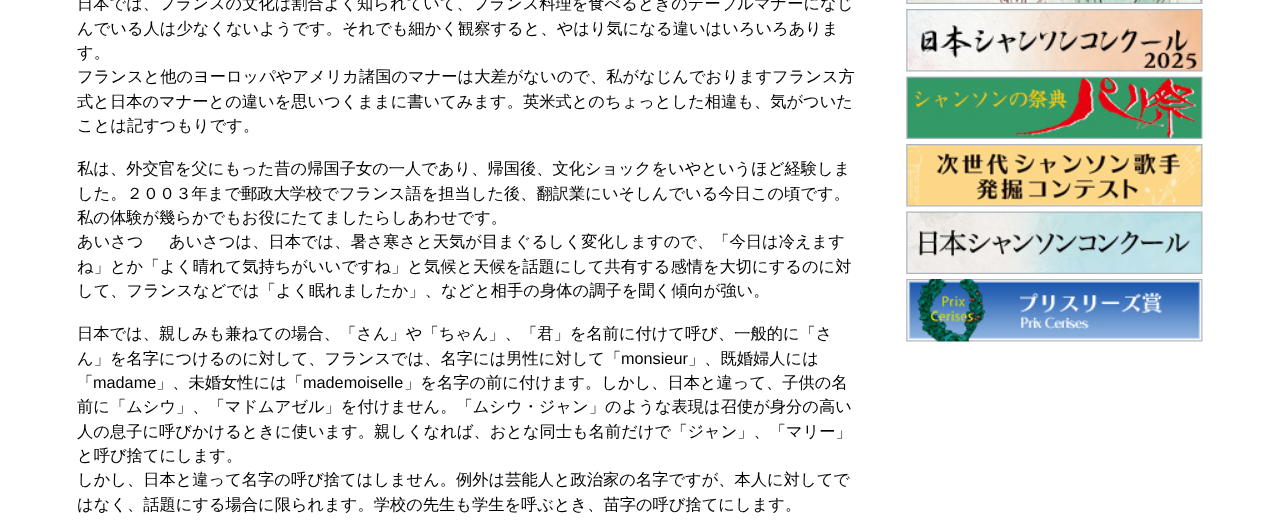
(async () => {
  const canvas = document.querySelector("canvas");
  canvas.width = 1278;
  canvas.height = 525;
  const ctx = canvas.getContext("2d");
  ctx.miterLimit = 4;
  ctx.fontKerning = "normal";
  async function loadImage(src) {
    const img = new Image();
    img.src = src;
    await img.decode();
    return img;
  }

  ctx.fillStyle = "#ffffff";
  ctx.fillRect(0, 0, 1278, 525);
  ctx.drawImage(await loadImage("img/1.png"), 906, 0, 297, 4);
  ctx.drawImage(await loadImage("img/2.png"), 906, 9, 297, 63);
  ctx.drawImage(await loadImage("img/3.png"), 906, 76, 297, 63);
  ctx.drawImage(await loadImage("img/4.png"), 906, 144, 297, 63);
  ctx.drawImage(await loadImage("img/5.png"), 906, 211, 297, 63);
  ctx.drawImage(await loadImage("img/6.png"), 906, 279, 297, 63);
  ctx.font = "500 16.25px WenQuanYi Zen Hei";
  ctx.fillStyle = "#000000";
  for (const [text, x, y] of [
    ["日本では、フランスの文化は割合よく知られていて、フランス料理を食べるときのテーブルマナーになじ", 77, 9],
    ["んでいる人は少なくないようです。それでも細かく観察すると、やはり気になる違いはいろいろありま", 77, 34],
    ["す。", 77, 58],
    ["フランスと他のヨーロッパやアメリカ諸国のマナーは大差がないので、私がなじんでおりますフランス方", 77, 82],
    ["式と日本のマナーとの違いを思いつくままに書いてみます。英米式とのちょっとした相違も、気がついた", 77, 107],
    ["ことは記すつもりです。", 77, 131],
    ["私は、外交官を父にもった昔の帰国子女の一人であり、帰国後、文化ショックをいやというほど経験しま", 77, 174],
    ["した。２００３年まで郵政大学校でフランス語を担当した後、翻訳業にいそしんでいる今日この頃です。", 77, 199],
    ["私の体験が幾らかでもお役にたてましたらしあわせです。", 77, 223],
    ["あいさつ", 77, 247],
    ["あいさつは、日本では、暑さ寒さと天気が目まぐるしく変化しますので、「今日は冷えます", 169, 247],
    ["ね」とか「よく晴れて気持ちがいいですね」と気候と天候を話題にして共有する感情を大切にするのに対", 77, 272],
    ["して、フランスなどでは「よく眠れましたか」、などと相手の身体の調子を聞く傾向が強い。", 77, 296],
    ["日本では、親しみも兼ねての場合、「さん」や「ちゃん」、「君」を名前に付けて呼び、一般的に「さ", 77, 339],
    ["ん」を名字につけるのに対して、フランスでは、名字には男性に対して「", 77, 364],
  ]) {
    ctx.fillText(text, x, y);
  }
  ctx.font = "16.25px Liberation Sans";
  ctx.fillText("monsieur", 621, 364);
  ctx.font = "500 16.25px WenQuanYi Zen Hei";
  ctx.fillText("」、既婚婦人には", 688, 364);
  ctx.fillText("「", 77, 388);
  ctx.font = "16.25px Liberation Sans";
  ctx.fillText("madame", 93, 388);
  ctx.font = "500 16.25px WenQuanYi Zen Hei";
  ctx.fillText("」、未婚女性には「", 156, 388);
  ctx.font = "16.25px Liberation Sans";
  ctx.fillText("mademoiselle", 303, 388);
  ctx.font = "500 16.25px WenQuanYi Zen Hei";
  for (const [text, x, y] of [
    ["」を名字の前に付けます。しかし、日本と違って、子供の名", 404, 388],
    ["前に「ムシウ」、「マドムアゼル」を付けません。「ムシウ・ジャン」のような表現は召使が身分の高い", 77, 412],
    ["人の息子に呼びかけるときに使います。親しくなれば、おとな同士も名前だけで「ジャン」、「マリー」", 77, 437],
    ["と呼び捨てにします。", 77, 461],
    ["しかし、日本と違って名字の呼び捨てはしません。例外は芸能人と政治家の名字ですが、本人に対してで", 77, 485],
    ["はなく、話題にする場合に限られます。学校の先生も学生を呼ぶとき、苗字の呼び捨てにします。", 77, 510],
  ]) {
    ctx.fillText(text, x, y);
  }
})();
